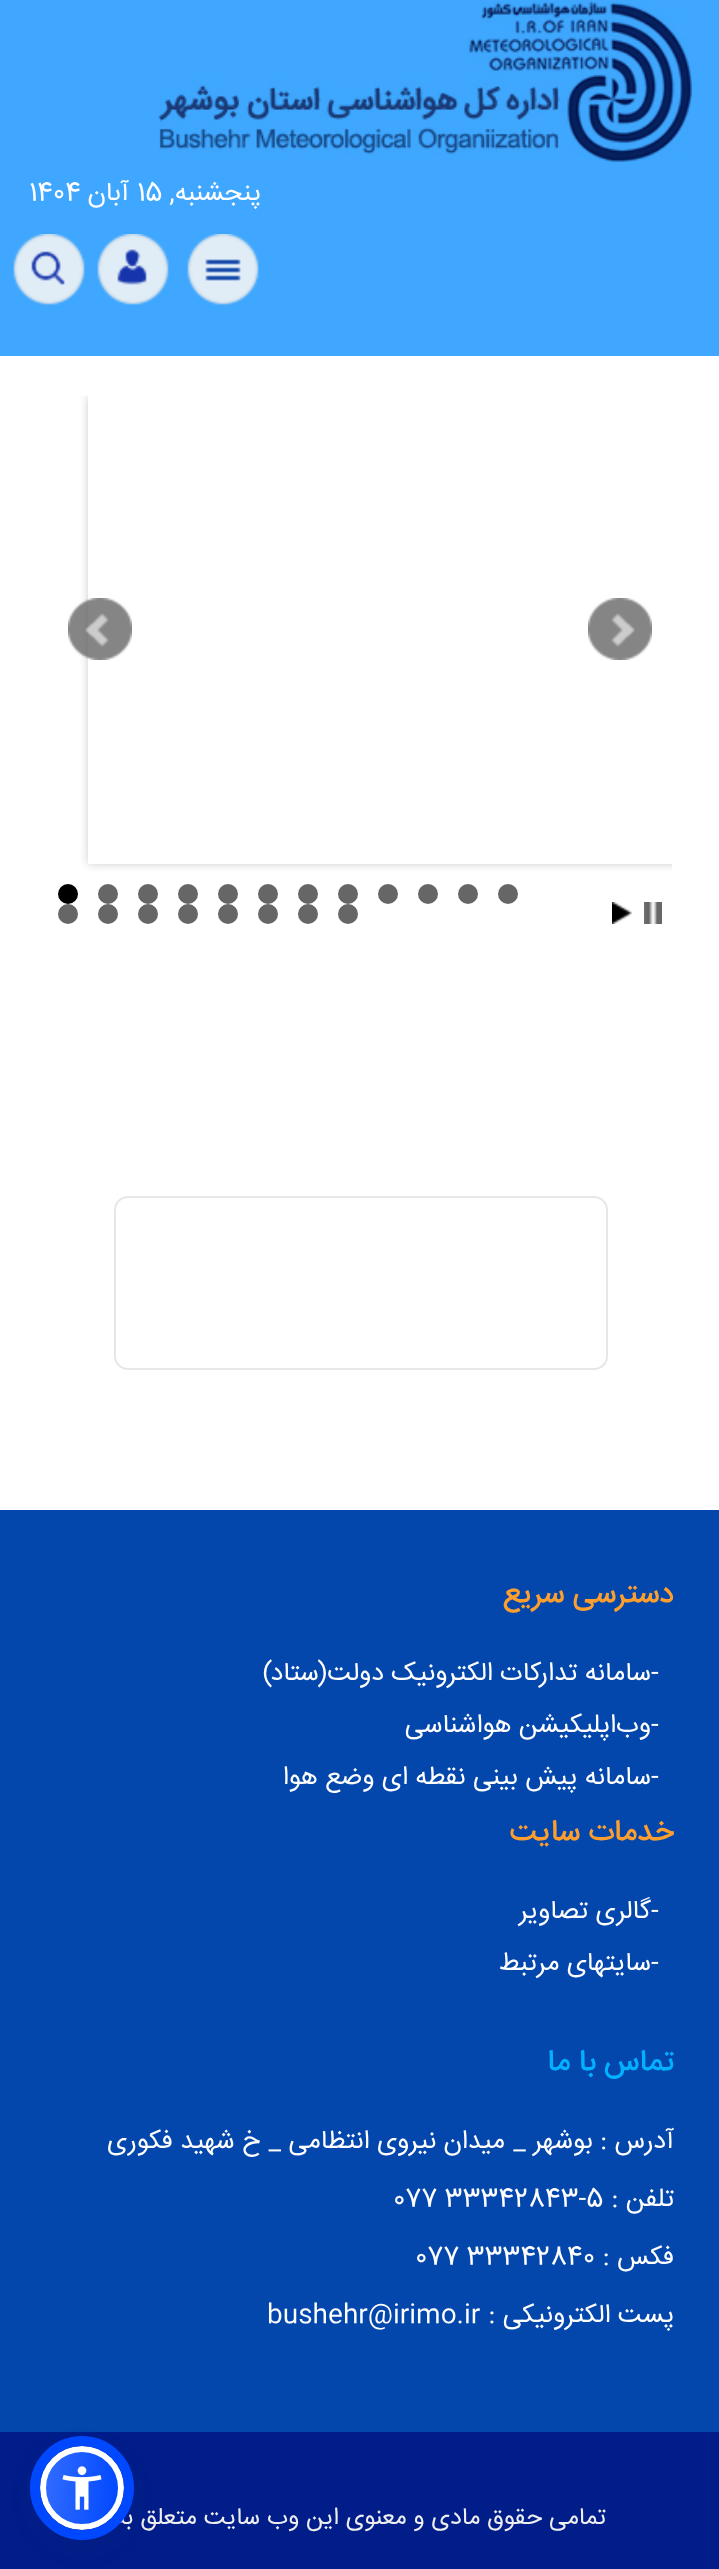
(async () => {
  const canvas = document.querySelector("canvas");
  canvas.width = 719;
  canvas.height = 2569;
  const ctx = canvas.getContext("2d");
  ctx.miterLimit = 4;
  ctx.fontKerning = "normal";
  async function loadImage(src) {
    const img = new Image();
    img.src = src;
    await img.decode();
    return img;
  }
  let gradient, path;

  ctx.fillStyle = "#ffffff";
  ctx.fillRect(0, 0, 719, 2569);
  ctx.fillStyle = "#3fa7ff";
  ctx.fillRect(0, 0, 719, 356);
  ctx.drawImage(await loadImage("img/1.png"), 158, 1, 534, 161);
  ctx.drawImage(await loadImage("img/2.png"), 187, 234, 72, 71);
  ctx.drawImage(await loadImage("img/3.png"), 97, 234, 72, 71);
  ctx.drawImage(await loadImage("img/4.png"), 13, 234, 72, 71);
  ctx.save();
  ctx.beginPath();
  ctx.rect(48, 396, 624, 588);
  ctx.clip();
  path = new Path2D("M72 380H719V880H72ZM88 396H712V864H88Z");
  ctx.clip(path, "evenodd");
  ctx.fillStyle = "#cccccc";
  ctx.filter = "blur(5px)";
  ctx.beginPath();
  ctx.rect(88, 396, 624, 468);
  ctx.fill();
  ctx.filter = "none";
  ctx.restore();
  ctx.drawImage(await loadImage("img/5.png"), 588, 598, 64, 62);
  ctx.drawImage(await loadImage("img/6.png"), 68, 598, 64, 62);
  ctx.drawImage(await loadImage("img/7.png"), 644, 902, 18, 22);
  ctx.drawImage(await loadImage("img/8.png"), 612, 902, 20, 22);
  ctx.fillStyle = "#666666";
  ctx.beginPath();
  ctx.arc(508, 894, 10, 0, Math.PI * 2);
  ctx.fill();
  ctx.beginPath();
  ctx.arc(468, 894, 10, 0, Math.PI * 2);
  ctx.fill();
  ctx.beginPath();
  ctx.arc(428, 894, 10, 0, Math.PI * 2);
  ctx.fill();
  ctx.beginPath();
  ctx.arc(388, 894, 10, 0, Math.PI * 2);
  ctx.fill();
  ctx.beginPath();
  ctx.arc(348, 894, 10, 0, Math.PI * 2);
  ctx.fill();
  ctx.beginPath();
  ctx.arc(308, 894, 10, 0, Math.PI * 2);
  ctx.fill();
  ctx.beginPath();
  ctx.arc(268, 894, 10, 0, Math.PI * 2);
  ctx.fill();
  ctx.beginPath();
  ctx.arc(228, 894, 10, 0, Math.PI * 2);
  ctx.fill();
  ctx.beginPath();
  ctx.arc(188, 894, 10, 0, Math.PI * 2);
  ctx.fill();
  ctx.beginPath();
  ctx.arc(148, 894, 10, 0, Math.PI * 2);
  ctx.fill();
  ctx.beginPath();
  ctx.arc(108, 894, 10, 0, Math.PI * 2);
  ctx.fill();
  ctx.fillStyle = "#000000";
  ctx.beginPath();
  ctx.arc(68, 894, 10, 0, Math.PI * 2);
  ctx.fill();
  ctx.fillStyle = "#666666";
  ctx.beginPath();
  ctx.arc(348, 914, 10, 0, Math.PI * 2);
  ctx.fill();
  ctx.beginPath();
  ctx.arc(308, 914, 10, 0, Math.PI * 2);
  ctx.fill();
  ctx.beginPath();
  ctx.arc(268, 914, 10, 0, Math.PI * 2);
  ctx.fill();
  ctx.beginPath();
  ctx.arc(228, 914, 10, 0, Math.PI * 2);
  ctx.fill();
  ctx.beginPath();
  ctx.arc(188, 914, 10, 0, Math.PI * 2);
  ctx.fill();
  ctx.beginPath();
  ctx.arc(148, 914, 10, 0, Math.PI * 2);
  ctx.fill();
  ctx.beginPath();
  ctx.arc(108, 914, 10, 0, Math.PI * 2);
  ctx.fill();
  ctx.beginPath();
  ctx.arc(68, 914, 10, 0, Math.PI * 2);
  ctx.fill();
  ctx.beginPath();
  ctx.roundRect(115, 1197, 492, 172, 13);
  ctx.strokeStyle = "#e7e7e7";
  ctx.lineWidth = 2;
  ctx.stroke();
  ctx.fillStyle = "#0347ac";
  ctx.fillRect(0, 1510, 719, 922);
  ctx.fillStyle = "#001d89";
  ctx.fillRect(0, 2432, 719, 137);
  ctx.fillStyle = "rgba(93, 100, 148, 0.2)";
  ctx.filter = "blur(4px)";
  ctx.beginPath();
  ctx.roundRect(40, 2450, 84, 84, 42);
  ctx.fill();
  ctx.filter = "none";
  ctx.fillStyle = "rgba(37, 44, 97, 0.15)";
  ctx.filter = "blur(15px)";
  ctx.beginPath();
  ctx.roundRect(40, 2456, 84, 84, 42);
  ctx.fill();
  ctx.filter = "none";
  ctx.direction = "rtl";
  ctx.font = "26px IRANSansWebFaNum";
  ctx.fillStyle = "#ffffff";
  ctx.fillText("پنجشنبه,", 261, 200);
  ctx.direction = "ltr";
  ctx.fillText("15", 137, 200);
  ctx.direction = "rtl";
  ctx.fillText("آبان", 129, 200);
  ctx.direction = "ltr";
  ctx.fillText("1404", 29, 200);
  ctx.direction = "rtl";
  ctx.font = "500 30px IRANSansWebFaNum";
  ctx.fillStyle = "#fd9e2f";
  ctx.fillText("دسترسی سریع", 674, 1602);
  ctx.direction = "ltr";
  ctx.font = "26px IRANSansWebFaNum";
  ctx.fillStyle = "#ffffff";
  ctx.fillText("-", 651, 1680);
  ctx.direction = "rtl";
  ctx.fillText("سامانه تدارکات الکترونیک دولت(ستاد)", 651, 1680);
  ctx.direction = "ltr";
  ctx.fillText("-", 651, 1732);
  ctx.direction = "rtl";
  ctx.fillText("وب‌اپلیکیشن هواشناسی", 651, 1732);
  ctx.direction = "ltr";
  ctx.fillText("-", 651, 1784);
  ctx.direction = "rtl";
  ctx.fillText("سامانه پیش بینی نقطه ای وضع هوا", 651, 1784);
  ctx.font = "500 30px IRANSansWebFaNum";
  ctx.fillStyle = "#fd9e2f";
  ctx.fillText("خدمات سایت", 674, 1840);
  ctx.direction = "ltr";
  ctx.font = "26px IRANSansWebFaNum";
  ctx.fillStyle = "#ffffff";
  ctx.fillText("-", 651, 1918);
  ctx.direction = "rtl";
  ctx.fillText("گالری تصاویر", 651, 1918);
  ctx.direction = "ltr";
  ctx.fillText("-", 651, 1970);
  ctx.direction = "rtl";
  ctx.fillText("سایتهای مرتبط", 651, 1970);
  ctx.font = "500 30px IRANSansWebFaNum";
  ctx.fillStyle = "#03afff";
  ctx.fillText("تماس با ما", 674, 2070);
  ctx.font = "26px IRANSansWebFaNum";
  ctx.fillStyle = "#ffffff";
  for (const [text, x, y] of [
    ["آدرس : بوشهر _", 674, 2148],
    ["میدان نیروی انتظامی _ خ شهید فکوری", 505, 2148],
    ["تلفن :", 674, 2206],
  ]) {
    ctx.fillText(text, x, y);
  }
  ctx.direction = "ltr";
  ctx.fillText("077 33342843-5", 393, 2206);
  ctx.direction = "rtl";
  ctx.fillText("فکس :", 674, 2264);
  ctx.direction = "ltr";
  ctx.fillText("077 33342840", 415, 2264);
  ctx.direction = "rtl";
  ctx.fillText("پست الکترونیکی :", 674, 2322);
  ctx.direction = "ltr";
  ctx.fillText("bushehr@irimo.ir", 267, 2322);
  ctx.direction = "rtl";
  ctx.font = "24px IRANSansWebFaNum";
  ctx.fillStyle = "#eeeeee";
  ctx.fillText("تمامی حقوق مادی و معنوی این وب سایت متعلق به", 606, 2524);
  ctx.save();
  ctx.beginPath();
  ctx.roundRect(40, 2446, 84, 84, 42);
  ctx.clip();
  gradient = ctx.createLinearGradient(43, 2484, 121, 2492);
  gradient.addColorStop(0, "#326cff");
  gradient.addColorStop(1, "#0048ff");
  ctx.fillStyle = gradient;
  ctx.fillRect(46, 2452, 72, 72);
  ctx.restore();
  ctx.beginPath();
  ctx.arc(82, 2488, 39, 0, Math.PI * 2);
  ctx.strokeStyle = "#ffffff";
  ctx.lineWidth = 6;
  ctx.stroke();
  ctx.beginPath();
  ctx.arc(82, 2488, 47, 0, Math.PI * 2);
  ctx.strokeStyle = "#0048ff";
  ctx.lineWidth = 10;
  ctx.stroke();
  ctx.drawImage(await loadImage("img/9.png"), 62, 2466, 40, 44);
})();
